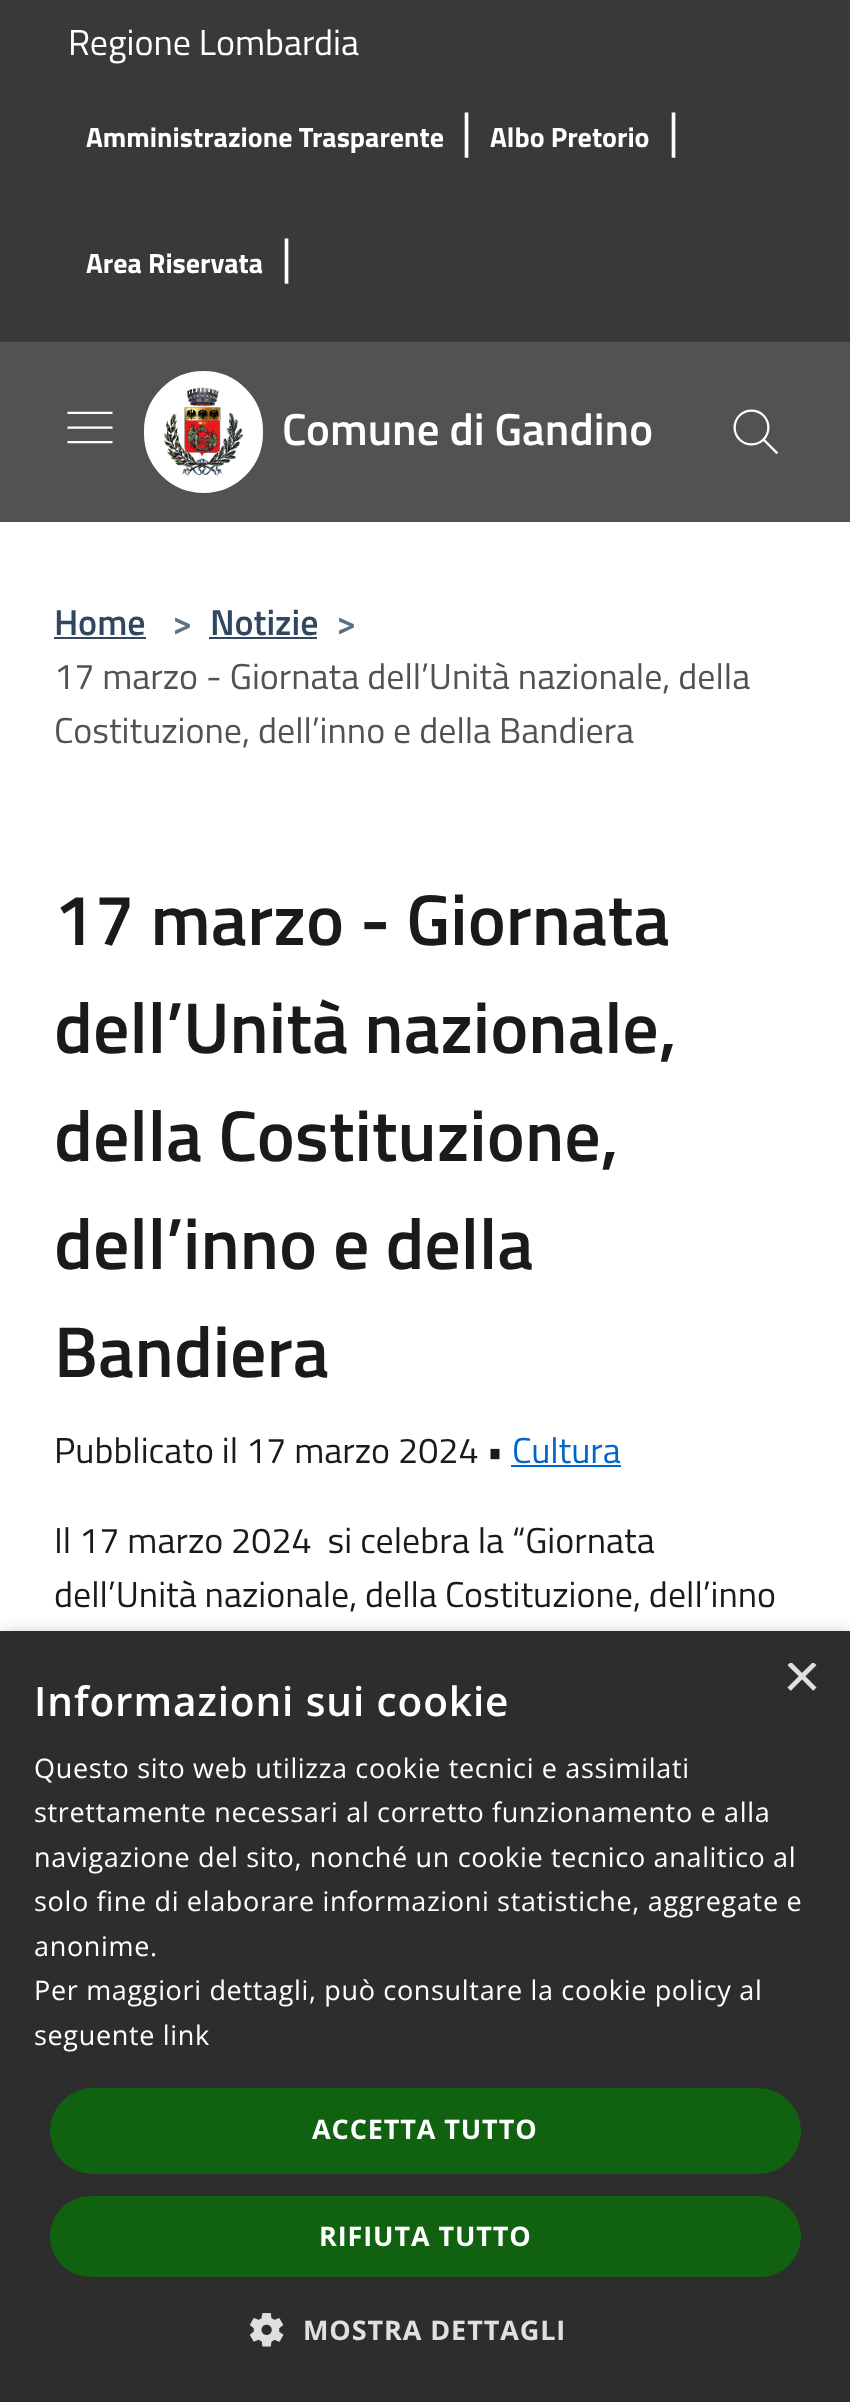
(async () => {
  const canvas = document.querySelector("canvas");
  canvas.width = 850;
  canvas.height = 2402;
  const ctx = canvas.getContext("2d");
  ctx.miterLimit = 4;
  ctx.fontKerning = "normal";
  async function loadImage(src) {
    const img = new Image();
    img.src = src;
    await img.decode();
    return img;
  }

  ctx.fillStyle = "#ffffff";
  ctx.fillRect(0, 0, 850, 2402);
  ctx.fillStyle = "#393939";
  ctx.fillRect(0, 0, 850, 342);
  ctx.fillStyle = "#525252";
  ctx.fillRect(0, 342, 850, 180);
  ctx.drawImage(await loadImage("img/1.png"), 67, 411, 46, 33);
  ctx.fillStyle = "#ffffff";
  ctx.beginPath();
  ctx.roundRect(145, 372, 117, 120, 58.5);
  ctx.fill();
  ctx.strokeStyle = "#ffffff";
  ctx.lineWidth = 2;
  ctx.stroke();
  ctx.drawImage(await loadImage("img/2.png"), 164, 387, 80, 90);
  ctx.drawImage(await loadImage("img/3.png"), 733, 409, 46, 46);
  for (const [x, y, w, h, color] of [
    [54, 637, 92, 2, "#30475f"],
    [209, 637, 108, 2, "#30475f"],
    [511, 1465, 110, 2, "#0066cc"],
  ]) {
    ctx.fillStyle = color;
    ctx.fillRect(x, y, w, h);
  }
  ctx.fillStyle = "rgba(0, 0, 0, 0.35)";
  ctx.filter = "blur(9px)";
  ctx.beginPath();
  ctx.rect(2, 1636, 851, 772);
  ctx.fill();
  ctx.filter = "none";
  ctx.fillStyle = "#2d2d2d";
  ctx.fillRect(0, 1631, 850, 771);
  ctx.fillStyle = "#106110";
  ctx.beginPath();
  ctx.roundRect(50, 2088, 751, 86, 43);
  ctx.fill();
  ctx.beginPath();
  ctx.roundRect(50, 2196, 751, 81, 40.5);
  ctx.fill();
  ctx.drawImage(await loadImage("img/4.png"), 250, 2313, 34, 34);
  ctx.font = "36px Titillium Web";
  ctx.fillStyle = "#ffffff";
  ctx.fillText("Regione Lombardia", 68, 55);
  ctx.font = "bold 28px Titillium Web";
  ctx.fillText("Amministrazione Trasparente", 86, 147);
  ctx.font = "48px Titillium Web";
  ctx.fillText("|", 461, 147);
  ctx.font = "bold 28px Titillium Web";
  ctx.fillText("Albo Pretorio", 490, 147);
  ctx.font = "48px Titillium Web";
  ctx.fillText("|", 668, 147);
  ctx.font = "bold 28px Titillium Web";
  ctx.fillText("Area Riservata", 86, 273);
  ctx.font = "48px Titillium Web";
  ctx.fillText("|", 281, 273);
  ctx.font = "600 45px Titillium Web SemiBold";
  ctx.fillText("Comune di Gandino", 282, 445);
  ctx.font = "600 36px Titillium Web SemiBold";
  ctx.fillStyle = "#30475f";
  ctx.fillText("Home", 54, 635);
  ctx.fillStyle = "#5d7083";
  ctx.fillText(">", 172, 635);
  ctx.fillStyle = "#30475f";
  ctx.fillText("Notizie", 210, 635);
  ctx.fillStyle = "#5d7083";
  ctx.fillText(">", 336, 635);
  ctx.font = "36px Titillium Web";
  ctx.fillStyle = "#525252";
  ctx.fillText("17 marzo - Giornata dell’Unità nazionale, della", 54, 689);
  ctx.fillText("Costituzione, dell’inno e della Bandiera", 54, 743);
  ctx.font = "600 72px Titillium Web SemiBold";
  ctx.fillStyle = "#1a1a1a";
  for (const [text, x, y] of [
    ["17 marzo - Giornata", 54, 945],
    ["dell’Unità nazionale,", 54, 1053],
    ["della Costituzione,", 54, 1161],
    ["dell’inno e della", 54, 1269],
    ["Bandiera", 54, 1377],
  ]) {
    ctx.fillText(text, x, y);
  }
  ctx.font = "36px Titillium Web";
  ctx.fillText("Pubblicato il 17 marzo 2024 •", 54, 1463);
  ctx.fillStyle = "#0066cc";
  ctx.fillText("Cultura", 512, 1463);
  ctx.fillStyle = "#1a1a1a";
  ctx.fillText("Il 17 marzo 2024  si celebra la “Giornata", 54, 1553);
  ctx.fillText("dell’Unità nazionale, della Costituzione, dell’inno", 54, 1607);
  ctx.save();
  ctx.beginPath();
  ctx.rect(783, 1663, 34, 34);
  ctx.clip();
  ctx.font = "65px Liberation Sans";
  ctx.fillStyle = "#e0e0e0";
  ctx.fillText("×", 783, 1698);
  ctx.restore();
  ctx.letterSpacing = "0.9px";
  ctx.font = "600 40.5px Open Sans";
  ctx.fillStyle = "#ffffff";
  ctx.fillText("Informazioni sui cookie", 34, 1716);
  ctx.letterSpacing = "0.67px";
  ctx.font = "27px Open Sans";
  for (const [text, x, y] of [
    ["Questo sito web utilizza cookie tecnici e assimilati", 34, 1778],
    ["strettamente necessari al corretto funzionamento e alla", 34, 1822],
    ["navigazione del sito, nonché un cookie tecnico analitico al", 34, 1867],
    ["solo fine di elaborare informazioni statistiche, aggregate e", 34, 1911],
    ["anonime.", 34, 1956],
    ["Per maggiori dettagli, può consultare la cookie policy al", 34, 2000],
    ["seguente link", 34, 2045],
  ]) {
    ctx.fillText(text, x, y);
  }
  ctx.letterSpacing = "0.9px";
  ctx.font = "bold 27px Open Sans";
  ctx.fillText("ACCETTA TUTTO", 312, 2139);
  ctx.fillText("RIFIUTA TUTTO", 319, 2246);
  ctx.fillStyle = "#e0e0e0";
  ctx.fillText("MOSTRA DETTAGLI", 303, 2340);
})();
